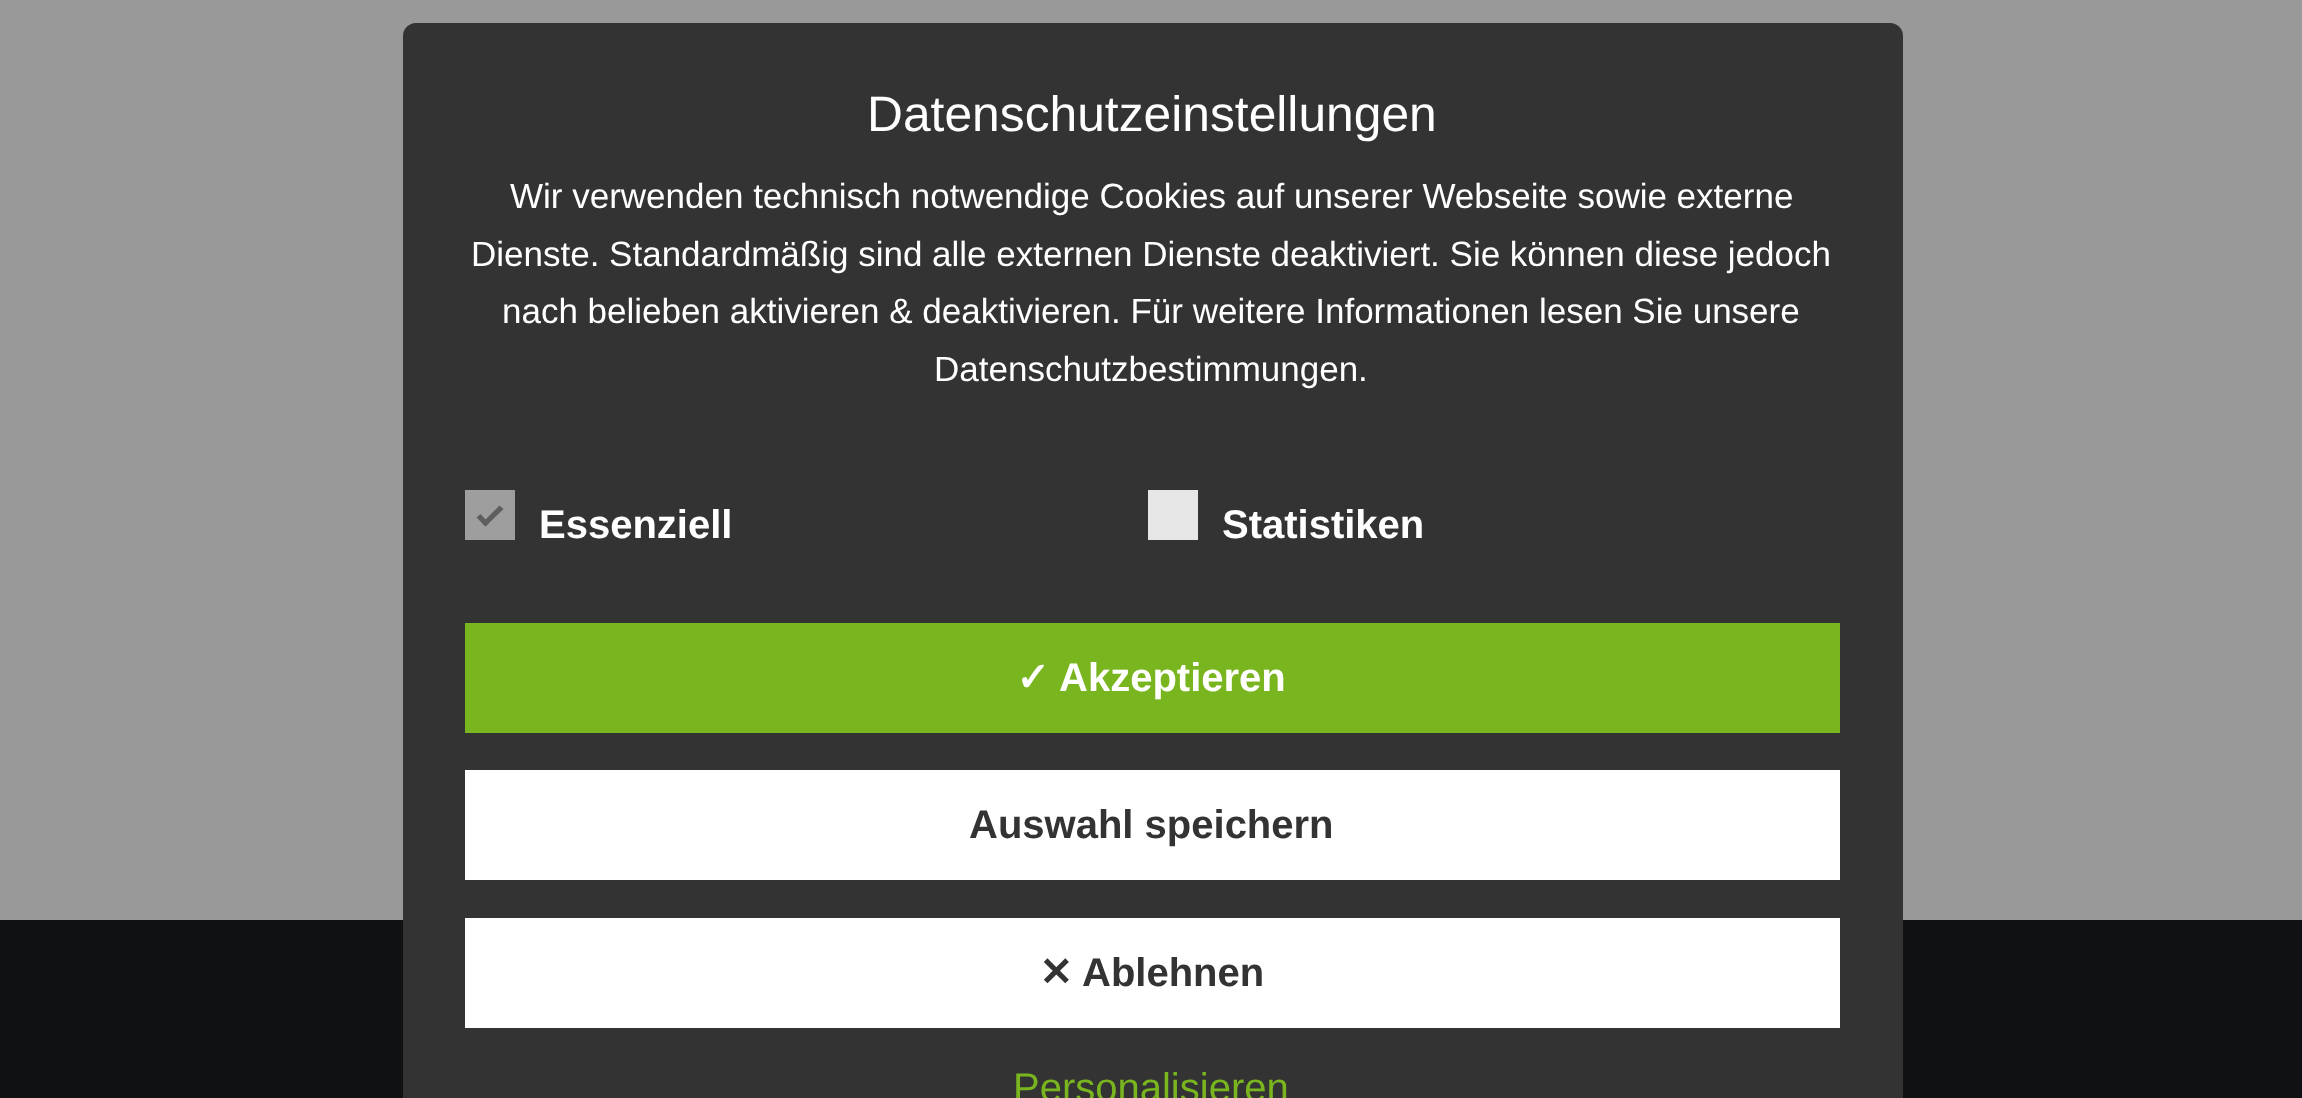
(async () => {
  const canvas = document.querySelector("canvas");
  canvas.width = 2302;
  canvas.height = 1098;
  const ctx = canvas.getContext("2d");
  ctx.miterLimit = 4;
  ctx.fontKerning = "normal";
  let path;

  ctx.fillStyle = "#999999";
  ctx.fillRect(0, 0, 2302, 1098);
  ctx.fillStyle = "#101113";
  ctx.fillRect(0, 920, 2302, 178);
  ctx.fillStyle = "#333333";
  ctx.beginPath();
  ctx.roundRect(403, 23, 1500, 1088, 13);
  ctx.fill();
  ctx.fillStyle = "#9e9e9e";
  ctx.fillRect(465, 490, 50, 50);
  ctx.fillStyle = "#5e5e5e";
  path = new Path2D("M499.5 505.5L503.5 509L485.5 526.5L482 523Z");
  ctx.fill(path);
  path = new Path2D("M480.5 514L489 523L485.5 526.5L476.5 517.5Z");
  ctx.fill(path);
  for (const [x, y, w, h, color] of [
    [1148, 490, 50, 50, "#e6e6e6"],
    [465, 623, 1375, 110, "#79b51f"],
    [465, 770, 1375, 110, "#ffffff"],
    [465, 918, 1375, 110, "#ffffff"],
  ]) {
    ctx.fillStyle = color;
    ctx.fillRect(x, y, w, h);
  }
  ctx.font = "49.75px Liberation Sans";
  ctx.fillText("Datenschutzeinstellungen", 867, 131);
  ctx.font = "35px Liberation Sans";
  for (const [text, x, y] of [
    ["Wir verwenden technisch notwendige Cookies auf unserer Webseite sowie externe", 510, 208],
    ["Dienste. Standardmäßig sind alle externen Dienste deaktiviert. Sie können diese jedoch", 471, 266],
    ["nach belieben aktivieren & deaktivieren. Für weitere Informationen lesen Sie unsere", 502, 323],
    ["Datenschutzbestimmungen.", 934, 381],
  ]) {
    ctx.fillText(text, x, y);
  }
  ctx.font = "bold 40px Liberation Sans";
  ctx.fillText("Essenziell", 539, 538);
  ctx.fillText("Statistiken", 1222, 538);
  ctx.font = "bold 40px DejaVu Sans";
  ctx.fillText("✓", 1016, 691);
  ctx.font = "bold 40px Liberation Sans";
  ctx.fillText("Akzeptieren", 1059, 691);
  ctx.fillStyle = "#333333";
  ctx.fillText("Auswahl speichern", 969, 838);
  ctx.font = "bold 40px DejaVu Sans";
  ctx.fillText("✕", 1039, 986);
  ctx.font = "bold 40px Liberation Sans";
  ctx.fillText("Ablehnen", 1082, 986);
  ctx.font = "40px Liberation Sans";
  ctx.fillStyle = "#79b51f";
  ctx.fillText("Personalisieren", 1013, 1101);
})();
